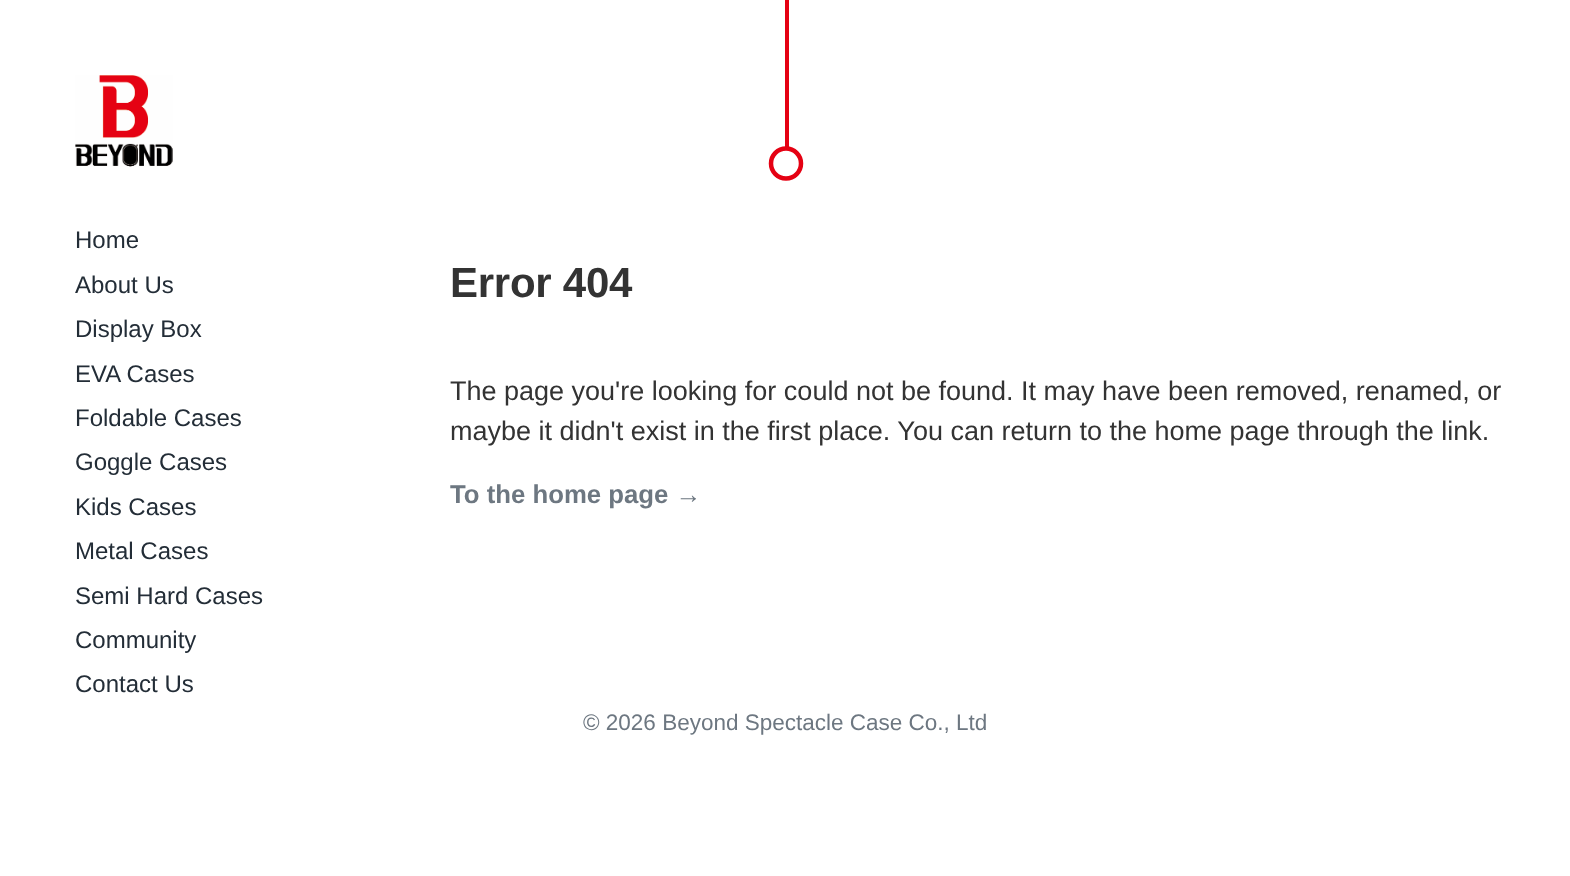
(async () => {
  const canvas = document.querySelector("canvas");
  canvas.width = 1570;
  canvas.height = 876;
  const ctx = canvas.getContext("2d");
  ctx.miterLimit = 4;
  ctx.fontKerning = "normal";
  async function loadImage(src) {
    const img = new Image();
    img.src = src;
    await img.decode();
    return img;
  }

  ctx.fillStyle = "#ffffff";
  ctx.fillRect(0, 0, 1570, 876);
  ctx.drawImage(await loadImage("img/1.png"), 75, 75, 98, 92);
  ctx.fillStyle = "#e50113";
  ctx.fillRect(785, 0, 4, 150);
  ctx.beginPath();
  ctx.arc(786, 163.5, 15, 0, Math.PI * 2);
  ctx.strokeStyle = "#e50113";
  ctx.lineWidth = 4.5;
  ctx.stroke();
  ctx.font = "24px Liberation Sans";
  ctx.fillStyle = "#232d37";
  for (const [text, x, y] of [
    ["Home", 75, 248],
    ["About Us", 75, 293],
    ["Display Box", 75, 337],
    ["EVA Cases", 75, 382],
    ["Foldable Cases", 75, 426],
    ["Goggle Cases", 75, 470],
    ["Kids Cases", 75, 515],
    ["Metal Cases", 75, 559],
    ["Semi Hard Cases", 75, 604],
    ["Community", 75, 648],
    ["Contact Us", 75, 692],
  ]) {
    ctx.fillText(text, x, y);
  }
  ctx.letterSpacing = "-0.25px";
  ctx.font = "bold 42px Liberation Sans";
  ctx.fillStyle = "#333333";
  ctx.fillText("Error 404", 450, 297);
  ctx.letterSpacing = "0px";
  ctx.font = "27px Liberation Sans";
  ctx.fillText("The page you're looking for could not be found. It may have been removed, renamed, or", 450, 400);
  ctx.fillText("maybe it didn't exist in the first place. You can return to the home page through the link.", 450, 440);
  ctx.font = "bold 25.75px Liberation Sans";
  ctx.fillStyle = "#6d7781";
  ctx.fillText("To the home page →", 450, 503);
  ctx.font = "22.5px Liberation Sans";
  ctx.fillText("© 2026 Beyond Spectacle Case Co., Ltd", 583, 730);
})();
